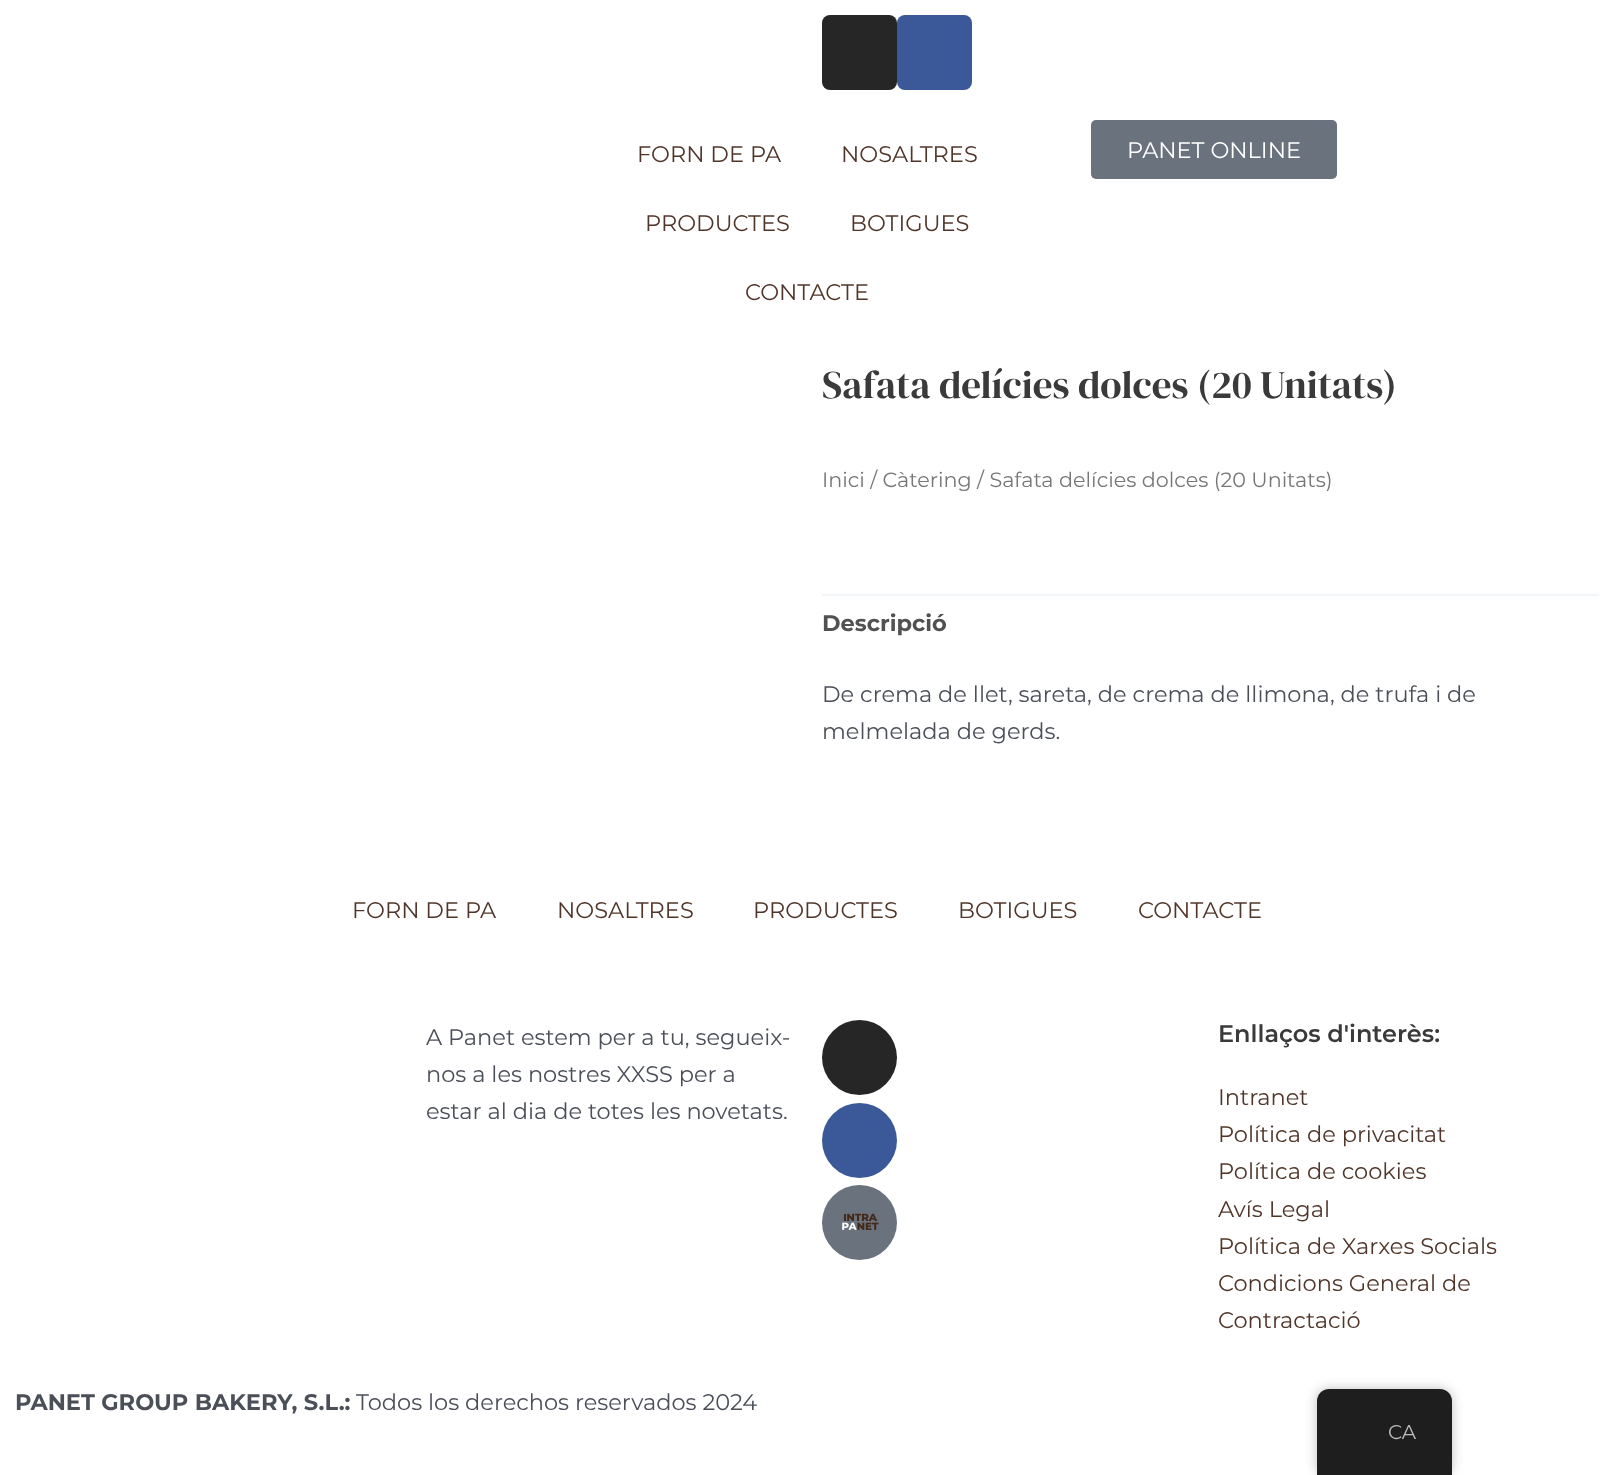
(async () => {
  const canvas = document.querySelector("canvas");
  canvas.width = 1614;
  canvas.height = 1475;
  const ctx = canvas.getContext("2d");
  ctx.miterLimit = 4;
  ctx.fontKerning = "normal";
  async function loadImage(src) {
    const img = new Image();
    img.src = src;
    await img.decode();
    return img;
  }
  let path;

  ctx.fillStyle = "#ffffff";
  ctx.fillRect(0, 0, 1614, 1475);
  ctx.fillStyle = "#262626";
  ctx.beginPath();
  ctx.roundRect(822, 15, 75, 75, 8);
  ctx.fill();
  ctx.fillStyle = "#3b5998";
  ctx.beginPath();
  ctx.roundRect(897, 15, 75, 75, 8);
  ctx.fill();
  ctx.fillStyle = "#69727d";
  ctx.beginPath();
  ctx.roundRect(1091, 120, 246, 59, 5);
  ctx.fill();
  ctx.fillStyle = "#f2f5f7";
  ctx.fillRect(822, 594, 777, 2);
  ctx.fillStyle = "#262626";
  ctx.beginPath();
  ctx.arc(859.5, 1057.5, 37.5, 0, Math.PI * 2);
  ctx.fill();
  ctx.fillStyle = "#3b5998";
  ctx.beginPath();
  ctx.arc(859.5, 1140.5, 37.5, 0, Math.PI * 2);
  ctx.fill();
  ctx.fillStyle = "#69727d";
  ctx.beginPath();
  ctx.arc(859.5, 1222.5, 37.5, 0, Math.PI * 2);
  ctx.fill();
  ctx.drawImage(await loadImage("img/1.png"), 842, 1213, 37, 17);
  ctx.fillStyle = "rgba(0, 0, 0, 0.25)";
  ctx.filter = "blur(6px)";
  ctx.beginPath();
  ctx.roundRect(1317, 1389, 135, 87, 12);
  ctx.fill();
  ctx.filter = "none";
  ctx.fillStyle = "#1e1e1e";
  path = new Path2D("M1329 1389H1440C1446.5 1389 1452 1394.5 1452 1401V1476H1317V1401C1317 1394.5 1322.5 1389 1329 1389Z");
  ctx.fill(path);
  ctx.font = "22.5px Montserrat";
  ctx.fillStyle = "#50362a";
  for (const [text, x, y] of [
    ["FORN DE PA", 637, 162],
    ["NOSALTRES", 841, 162],
    ["PRODUCTES", 645, 231],
    ["BOTIGUES", 850, 231],
    ["CONTACTE", 745, 300],
  ]) {
    ctx.fillText(text, x, y);
  }
  ctx.fillStyle = "#ffffff";
  ctx.fillText("PANET ONLINE", 1127, 158);
  ctx.font = "39px DM Serif Display";
  ctx.fillStyle = "#3a3a3a";
  ctx.fillText("Safata delícies dolces (20 Unitats)", 822, 398);
  ctx.font = "20.7px Montserrat";
  ctx.fillStyle = "#777777";
  ctx.fillText("Inici / Càtering / Safata delícies dolces (20 Unitats)", 822, 487);
  ctx.font = "bold 22.5px Montserrat";
  ctx.fillStyle = "#515151";
  ctx.fillText("Descripció", 822, 631);
  ctx.font = "22.5px Montserrat";
  ctx.fillStyle = "#4b4f58";
  ctx.fillText("De crema de llet, sareta, de crema de llimona, de trufa i de", 822, 702);
  ctx.fillText("melmelada de gerds.", 822, 739);
  ctx.fillStyle = "#50362a";
  for (const [text, x, y] of [
    ["FORN DE PA", 352, 918],
    ["NOSALTRES", 557, 918],
    ["PRODUCTES", 753, 918],
    ["BOTIGUES", 958, 918],
    ["CONTACTE", 1138, 918],
  ]) {
    ctx.fillText(text, x, y);
  }
  ctx.fillStyle = "#4b4f58";
  for (const [text, x, y] of [
    ["A Panet estem per a tu, segueix-", 426, 1045],
    ["nos a les nostres XXSS per a", 426, 1082],
    ["estar al dia de totes les novetats.", 426, 1119],
  ]) {
    ctx.fillText(text, x, y);
  }
  ctx.font = "600 24px Montserrat";
  ctx.fillStyle = "#3a3a3a";
  ctx.fillText("Enllaços d'interès:", 1218, 1042);
  ctx.font = "22.5px Montserrat";
  ctx.fillStyle = "#50362a";
  for (const [text, x, y] of [
    ["Intranet", 1218, 1105],
    ["Política de privacitat", 1218, 1142],
    ["Política de cookies", 1218, 1179],
    ["Avís Legal", 1218, 1217],
    ["Política de Xarxes Socials", 1218, 1254],
    ["Condicions General de", 1218, 1291],
    ["Contractació", 1218, 1328],
  ]) {
    ctx.fillText(text, x, y);
  }
  ctx.font = "bold 22.5px Montserrat";
  ctx.fillStyle = "#4b4f58";
  ctx.fillText("PANET GROUP BAKERY, S.L.:", 15, 1410);
  ctx.font = "22.5px Montserrat";
  ctx.fillText("Todos los derechos reservados 2024", 356, 1410);
  ctx.font = "20px Montserrat";
  ctx.fillStyle = "#bdbdbd";
  ctx.fillText("CA", 1388, 1439);
})();
